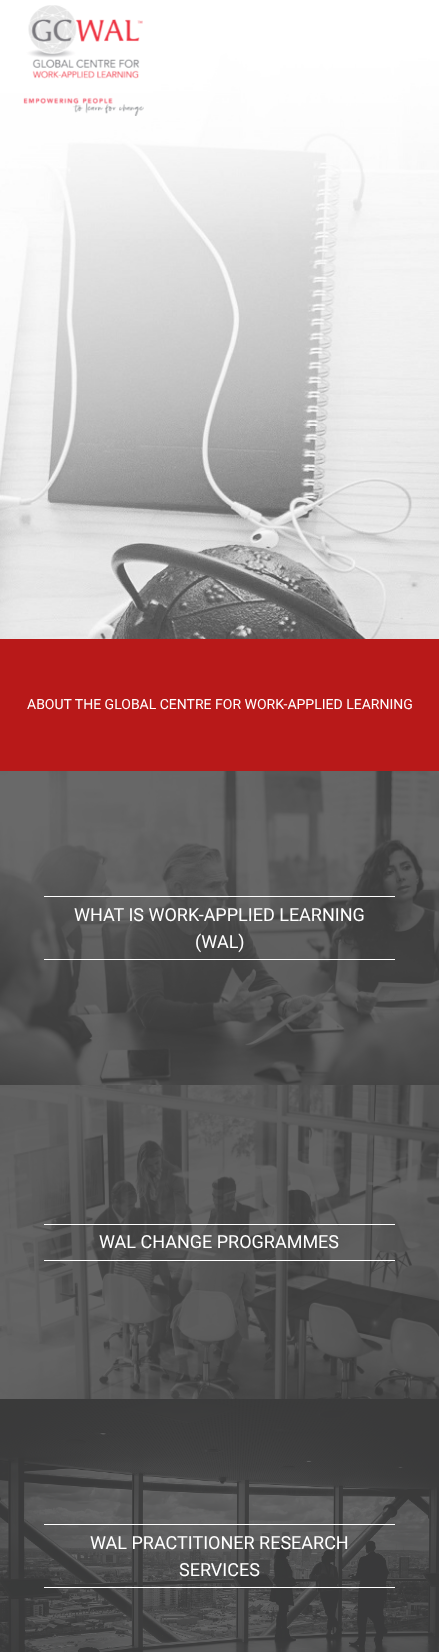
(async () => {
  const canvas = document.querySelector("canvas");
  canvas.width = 439;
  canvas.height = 1652;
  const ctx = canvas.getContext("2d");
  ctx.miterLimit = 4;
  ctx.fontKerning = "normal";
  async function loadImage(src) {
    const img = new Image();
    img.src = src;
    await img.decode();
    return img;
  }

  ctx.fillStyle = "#ffffff";
  ctx.fillRect(0, 0, 439, 1652);
  ctx.drawImage(await loadImage("img/2.png"), 0, 44, 439, 595);
  ctx.drawImage(await loadImage("img/1.png"), 23, 5, 121, 111);
  ctx.fillStyle = "#b81919";
  ctx.fillRect(0, 639, 439, 132);
  ctx.drawImage(await loadImage("img/3.png"), 0, 771, 439, 314);
  ctx.fillStyle = "#ffffff";
  ctx.fillRect(44, 896, 351, 1);
  ctx.fillRect(44, 959, 351, 1);
  ctx.drawImage(await loadImage("img/4.png"), 0, 1085, 439, 314);
  ctx.fillRect(44, 1224, 351, 1);
  ctx.fillRect(44, 1260, 351, 1);
  ctx.drawImage(await loadImage("img/5.png"), 0, 1399, 439, 253);
  ctx.fillRect(44, 1524, 351, 1);
  ctx.fillRect(44, 1587, 351, 1);
  ctx.font = "14px Roboto";
  ctx.fillText("ABOUT THE GLOBAL CENTRE FOR WORK-APPLIED LEARNING", 27, 709);
  ctx.font = "18px Roboto";
  for (const [text, x, y] of [
    ["WHAT IS WORK-APPLIED LEARNING", 74, 921],
    ["(WAL)", 195, 948],
    ["WAL CHANGE PROGRAMMES", 99, 1248],
    ["WAL PRACTITIONER RESEARCH", 90, 1549],
    ["SERVICES", 179, 1576],
  ]) {
    ctx.fillText(text, x, y);
  }
})();
